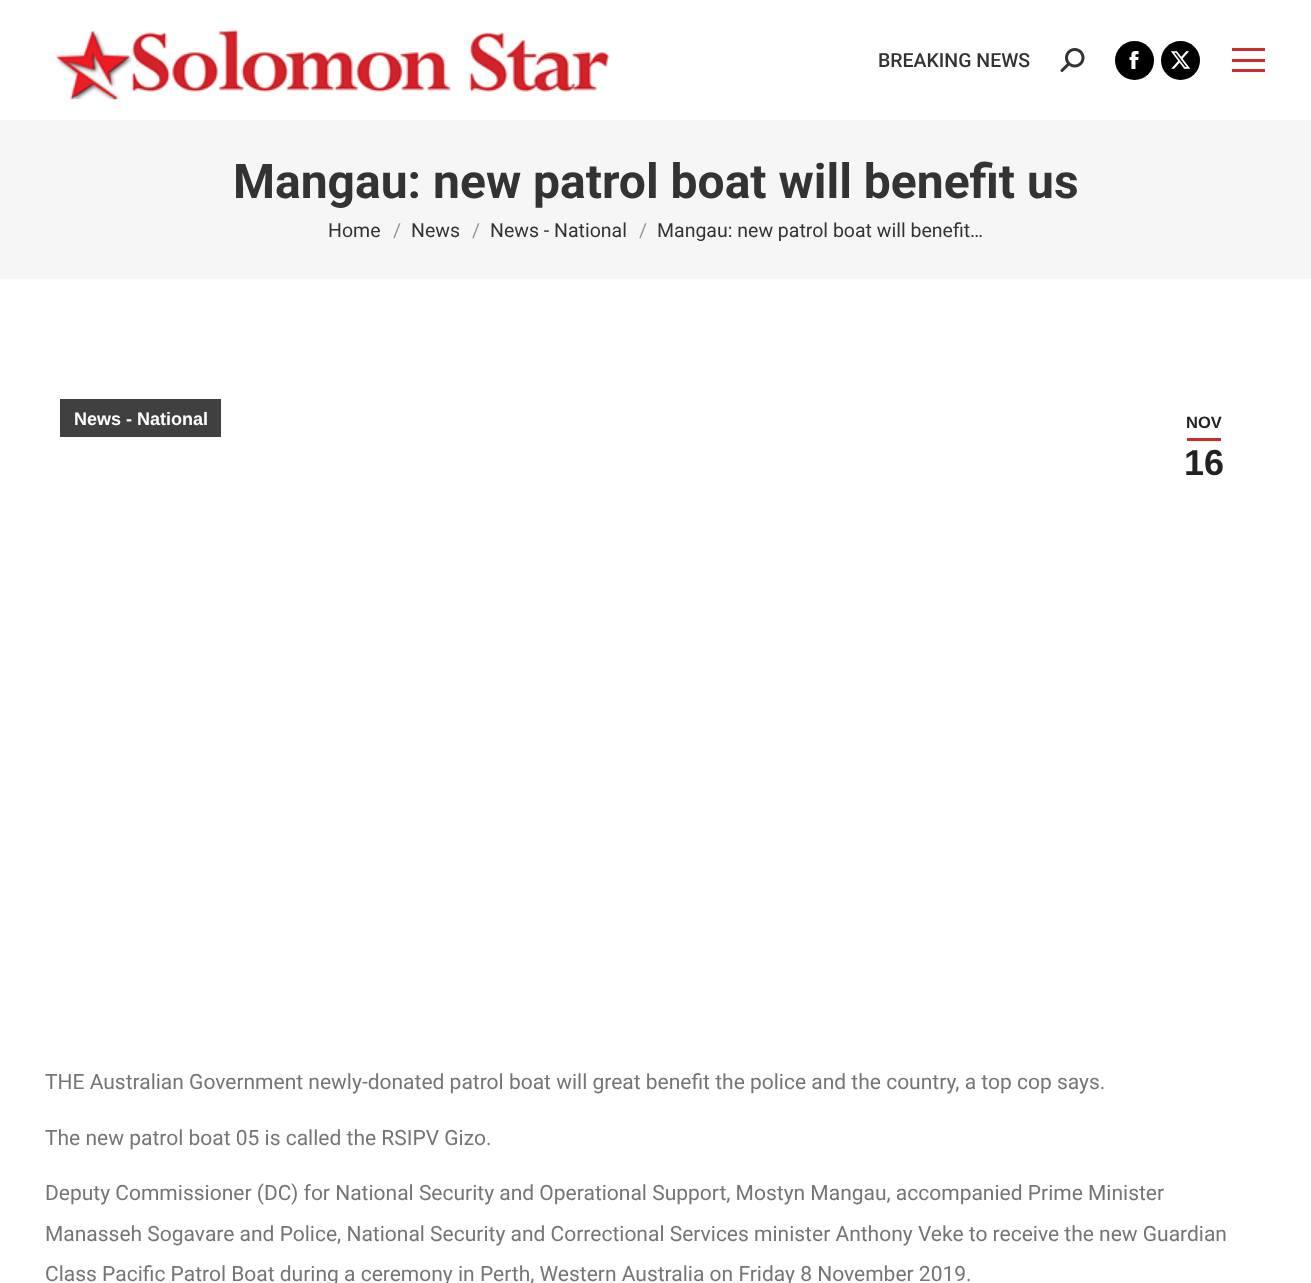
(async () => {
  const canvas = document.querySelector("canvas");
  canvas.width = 1311;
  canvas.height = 1283;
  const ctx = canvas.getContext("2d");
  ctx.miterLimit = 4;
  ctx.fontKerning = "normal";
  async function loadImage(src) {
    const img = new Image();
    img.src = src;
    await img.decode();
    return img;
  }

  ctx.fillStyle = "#ffffff";
  ctx.fillRect(0, 0, 1311, 1283);
  ctx.drawImage(await loadImage("img/1.png"), 55, 29, 555, 71);
  ctx.drawImage(await loadImage("img/2.png"), 1060, 48, 25, 24);
  ctx.fillStyle = "#000000";
  ctx.beginPath();
  ctx.arc(1134.5, 60.5, 19.5, 0, Math.PI * 2);
  ctx.fill();
  ctx.drawImage(await loadImage("img/3.png"), 1129, 51, 10, 18);
  ctx.beginPath();
  ctx.arc(1180.5, 60.5, 19.5, 0, Math.PI * 2);
  ctx.fill();
  ctx.drawImage(await loadImage("img/4.png"), 1170, 51, 21, 18);
  for (const [x, y, w, h, color] of [
    [1232, 48, 33, 3, "#d22b2b"],
    [1232, 59, 33, 3, "#d22b2b"],
    [1232, 69, 33, 3, "#d22b2b"],
    [0, 120, 1311, 159, "#f6f6f6"],
    [60, 399, 161, 38, "#404040"],
    [1187, 438, 34, 3, "#d22b2b"],
  ]) {
    ctx.fillStyle = color;
    ctx.fillRect(x, y, w, h);
  }
  ctx.font = "500 19.5px Roboto";
  ctx.fillStyle = "#333333";
  ctx.fillText("BREAKING NEWS", 878, 67);
  ctx.font = "bold 48px Roboto";
  ctx.fillText("Mangau: new patrol boat will benefit us", 233, 198);
  ctx.font = "19.5px Roboto";
  ctx.fillText("Home", 328, 237);
  ctx.fillStyle = "#959595";
  ctx.fillText("/", 393, 237);
  ctx.fillStyle = "#333333";
  ctx.fillText("News", 411, 237);
  ctx.fillStyle = "#959595";
  ctx.fillText("/", 472, 237);
  ctx.fillStyle = "#333333";
  ctx.fillText("News - National", 490, 237);
  ctx.fillStyle = "#959595";
  ctx.fillText("/", 639, 237);
  ctx.fillStyle = "#333333";
  ctx.fillText("Mangau: new patrol boat will benefit…", 657, 237);
  ctx.font = "bold 18px Liberation Sans";
  ctx.fillStyle = "#ffffff";
  ctx.fillText("News - National", 74, 425);
  ctx.font = "bold 16.5px Liberation Sans";
  ctx.fillStyle = "#222222";
  ctx.fillText("NOV", 1186, 428);
  ctx.font = "bold 36px Liberation Sans";
  ctx.fillText("16", 1184, 475);
  ctx.font = "21px Roboto";
  ctx.fillStyle = "#757575";
  for (const [text, x, y] of [
    ["THE Australian Government newly-donated patrol boat will great benefit the police and the country, a top cop says.", 45, 1089],
    ["The new patrol boat 05 is called the RSIPV Gizo.", 45, 1145],
    ["Deputy Commissioner (DC) for National Security and Operational Support, Mostyn Mangau, accompanied Prime Minister", 45, 1200],
    ["Manasseh Sogavare and Police, National Security and Correctional Services minister Anthony Veke to receive the new Guardian", 45, 1241],
    ["Class Pacific Patrol Boat during a ceremony in Perth, Western Australia on Friday 8 November 2019.", 45, 1281],
  ]) {
    ctx.fillText(text, x, y);
  }
})();
